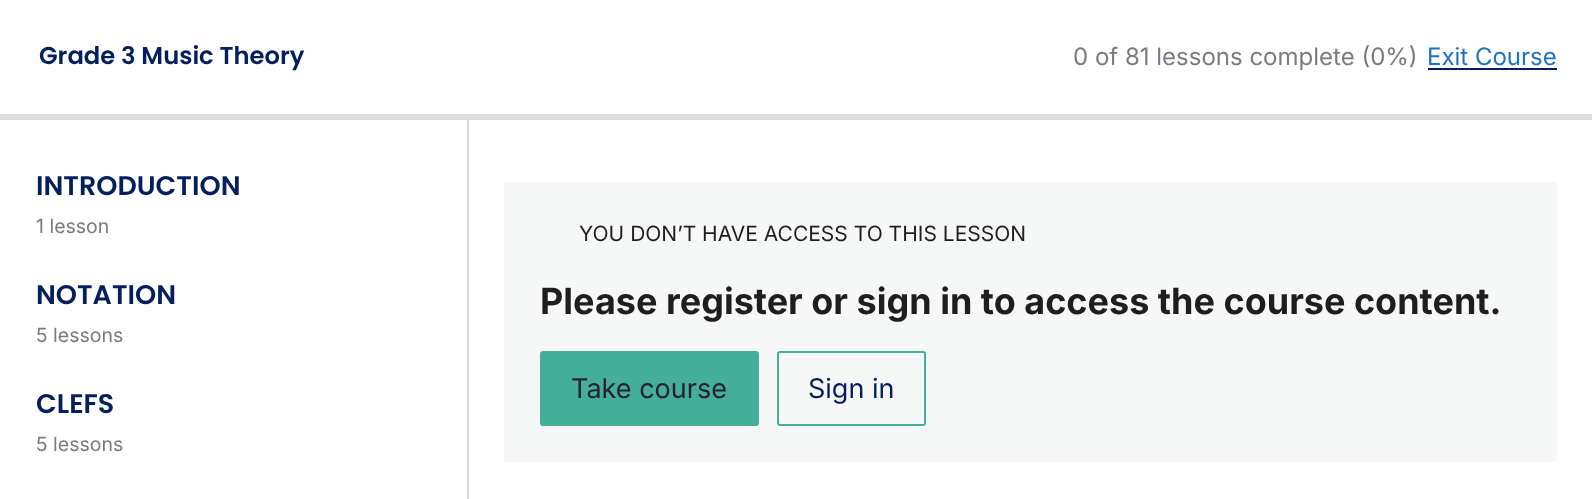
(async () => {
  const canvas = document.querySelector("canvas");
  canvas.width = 1592;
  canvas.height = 499;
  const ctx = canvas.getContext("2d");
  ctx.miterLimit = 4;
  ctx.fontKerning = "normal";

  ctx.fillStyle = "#ffffff";
  ctx.fillRect(0, 0, 1592, 499);
  for (const [x, y, w, h, color] of [
    [1428, 68, 129, 2, "#031f5e"],
    [0, 114, 1592, 6, "#dcdcde"],
    [467, 120, 2, 379, "#d8d8d8"],
    [504, 182, 1053, 280, "#f6f7f7"],
  ]) {
    ctx.fillStyle = color;
    ctx.fillRect(x, y, w, h);
  }
  ctx.fillStyle = "#43af99";
  ctx.beginPath();
  ctx.roundRect(541, 352, 217, 73, 2);
  ctx.fill();
  ctx.strokeStyle = "#43af99";
  ctx.lineWidth = 2;
  ctx.stroke();
  ctx.beginPath();
  ctx.roundRect(778, 352, 147, 73, 2);
  ctx.stroke();
  ctx.font = "600 24.25px Poppins";
  ctx.fillStyle = "#031f5e";
  ctx.fillText("Grade 3 Music Theory", 39, 64);
  ctx.font = "24px Inter";
  ctx.fillStyle = "#787c82";
  ctx.fillText("0 of 81 lessons complete (0%)", 1073, 65);
  ctx.fillStyle = "#1e73be";
  ctx.fillText("Exit Course", 1427, 65);
  ctx.font = "600 27px Poppins";
  ctx.fillStyle = "#031f5e";
  ctx.fillText("INTRODUCTION", 36, 195);
  ctx.font = "19.5px Inter";
  ctx.fillStyle = "#787c82";
  ctx.fillText("1 lesson", 36, 233);
  ctx.font = "600 27px Poppins";
  ctx.fillStyle = "#031f5e";
  ctx.fillText("NOTATION", 36, 304);
  ctx.font = "19.5px Inter";
  ctx.fillStyle = "#787c82";
  ctx.fillText("5 lessons", 36, 342);
  ctx.font = "600 27px Poppins";
  ctx.fillStyle = "#031f5e";
  ctx.fillText("CLEFS", 36, 413);
  ctx.font = "19.5px Inter";
  ctx.fillStyle = "#787c82";
  ctx.fillText("5 lessons", 36, 451);
  ctx.font = "21px Inter";
  ctx.fillStyle = "#1e1e1e";
  ctx.fillText("YOU DON’T HAVE ACCESS TO THIS LESSON", 579, 241);
  ctx.font = "bold 36px Inter";
  ctx.fillText("Please register or sign in to access the course content.", 540, 314);
  ctx.font = "27px Inter";
  ctx.fillStyle = "#26212e";
  ctx.fillText("Take course", 571, 398);
  ctx.fillStyle = "#031f5e";
  ctx.fillText("Sign in", 808, 398);
})();
